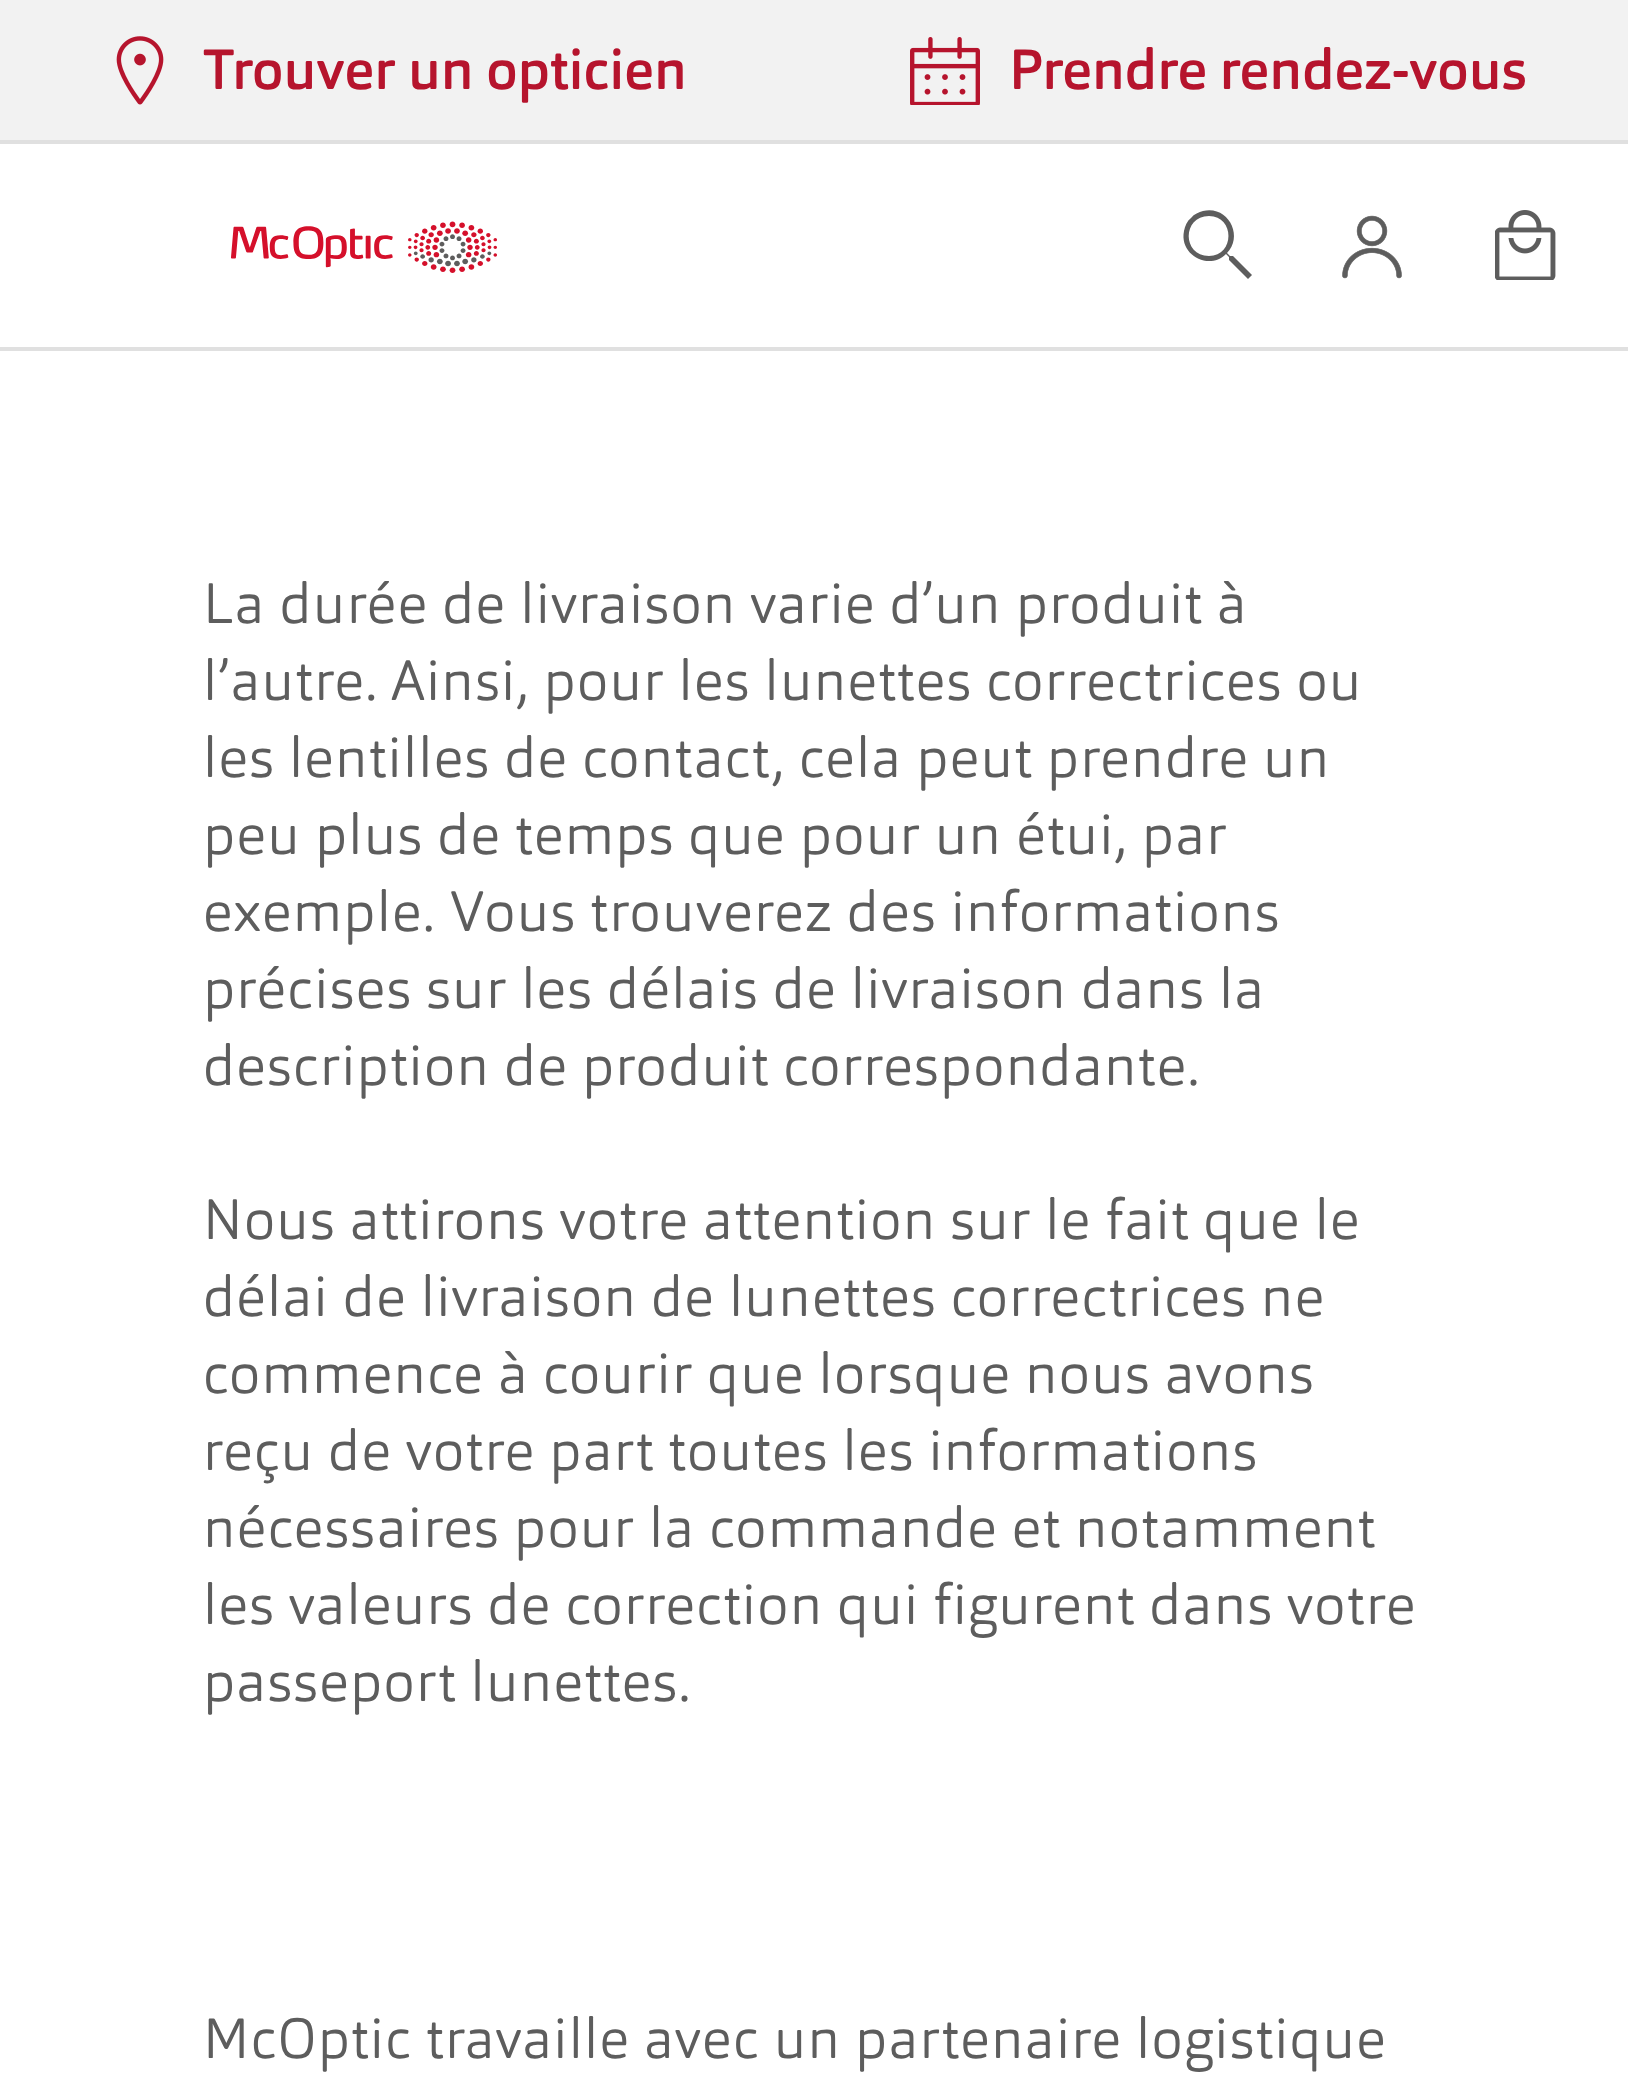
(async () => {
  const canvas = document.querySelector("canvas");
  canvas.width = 1628;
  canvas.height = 2098;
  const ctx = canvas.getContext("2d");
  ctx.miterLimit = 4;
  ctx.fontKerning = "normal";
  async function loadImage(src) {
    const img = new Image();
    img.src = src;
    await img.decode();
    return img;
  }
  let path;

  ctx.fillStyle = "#ffffff";
  ctx.fillRect(0, 0, 1628, 2098);
  for (const [x, y, w, h, color] of [
    [0, 347, 1628, 4, "#e0e0e0"],
    [0, 0, 1628, 140, "#f2f2f2"],
    [0, 140, 1628, 4, "#e0e0e0"],
  ]) {
    ctx.fillStyle = color;
    ctx.fillRect(x, y, w, h);
  }
  ctx.drawImage(await loadImage("img/1.png"), 116, 36, 48, 69);
  ctx.drawImage(await loadImage("img/2.png"), 910, 37, 70, 68);
  ctx.drawImage(await loadImage("img/3.png"), 231, 221, 266, 52);
  ctx.fillStyle = "#5d5d5d";
  path = new Path2D("M1230 256L1227 253C1244 236 1228 205 1203 211C1199 212 1194 214 1191 218C1187 221 1185 226 1184 231C1179 255 1209 271 1226 254L1229 257V260L1248 279L1252 275L1233 256ZM1209 256C1182 256 1182 216 1209 216C1235 216 1235 256 1209 256Z");
  ctx.fill(path);
  ctx.drawImage(await loadImage("img/4.png"), 1342, 215, 60, 64);
  ctx.drawImage(await loadImage("img/5.png"), 1495, 210, 61, 70);
  ctx.font = "500 56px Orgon";
  ctx.fillStyle = "#b6142d";
  ctx.fillText("Trouver un opticien", 202, 89);
  ctx.fillText("Prendre rendez-vous", 1009, 89);
  ctx.letterSpacing = "1.3px";
  ctx.font = "300 56px Orgon";
  ctx.fillStyle = "#5d5d5d";
  for (const [text, x, y] of [
    ["La durée de livraison varie d’un produit à", 203, 623],
    ["l’autre. Ainsi, pour les lunettes correctrices ou", 203, 700],
    ["les lentilles de contact, cela peut prendre un", 203, 777],
    ["peu plus de temps que pour un étui, par", 203, 854],
    ["exemple. Vous trouverez des informations", 203, 931],
    ["précises sur les délais de livraison dans la", 203, 1008],
    ["description de produit correspondante.", 203, 1085],
    ["Nous attirons votre attention sur le fait que le", 203, 1239],
    ["délai de livraison de lunettes correctrices ne", 203, 1316],
    ["commence à courir que lorsque nous avons", 203, 1393],
    ["reçu de votre part toutes les informations", 203, 1470],
    ["nécessaires pour la commande et notamment", 203, 1547],
    ["les valeurs de correction qui figurent dans votre", 203, 1624],
    ["passeport lunettes.", 203, 1701],
    ["McOptic travaille avec un partenaire logistique", 203, 2058],
  ]) {
    ctx.fillText(text, x, y);
  }
})();
